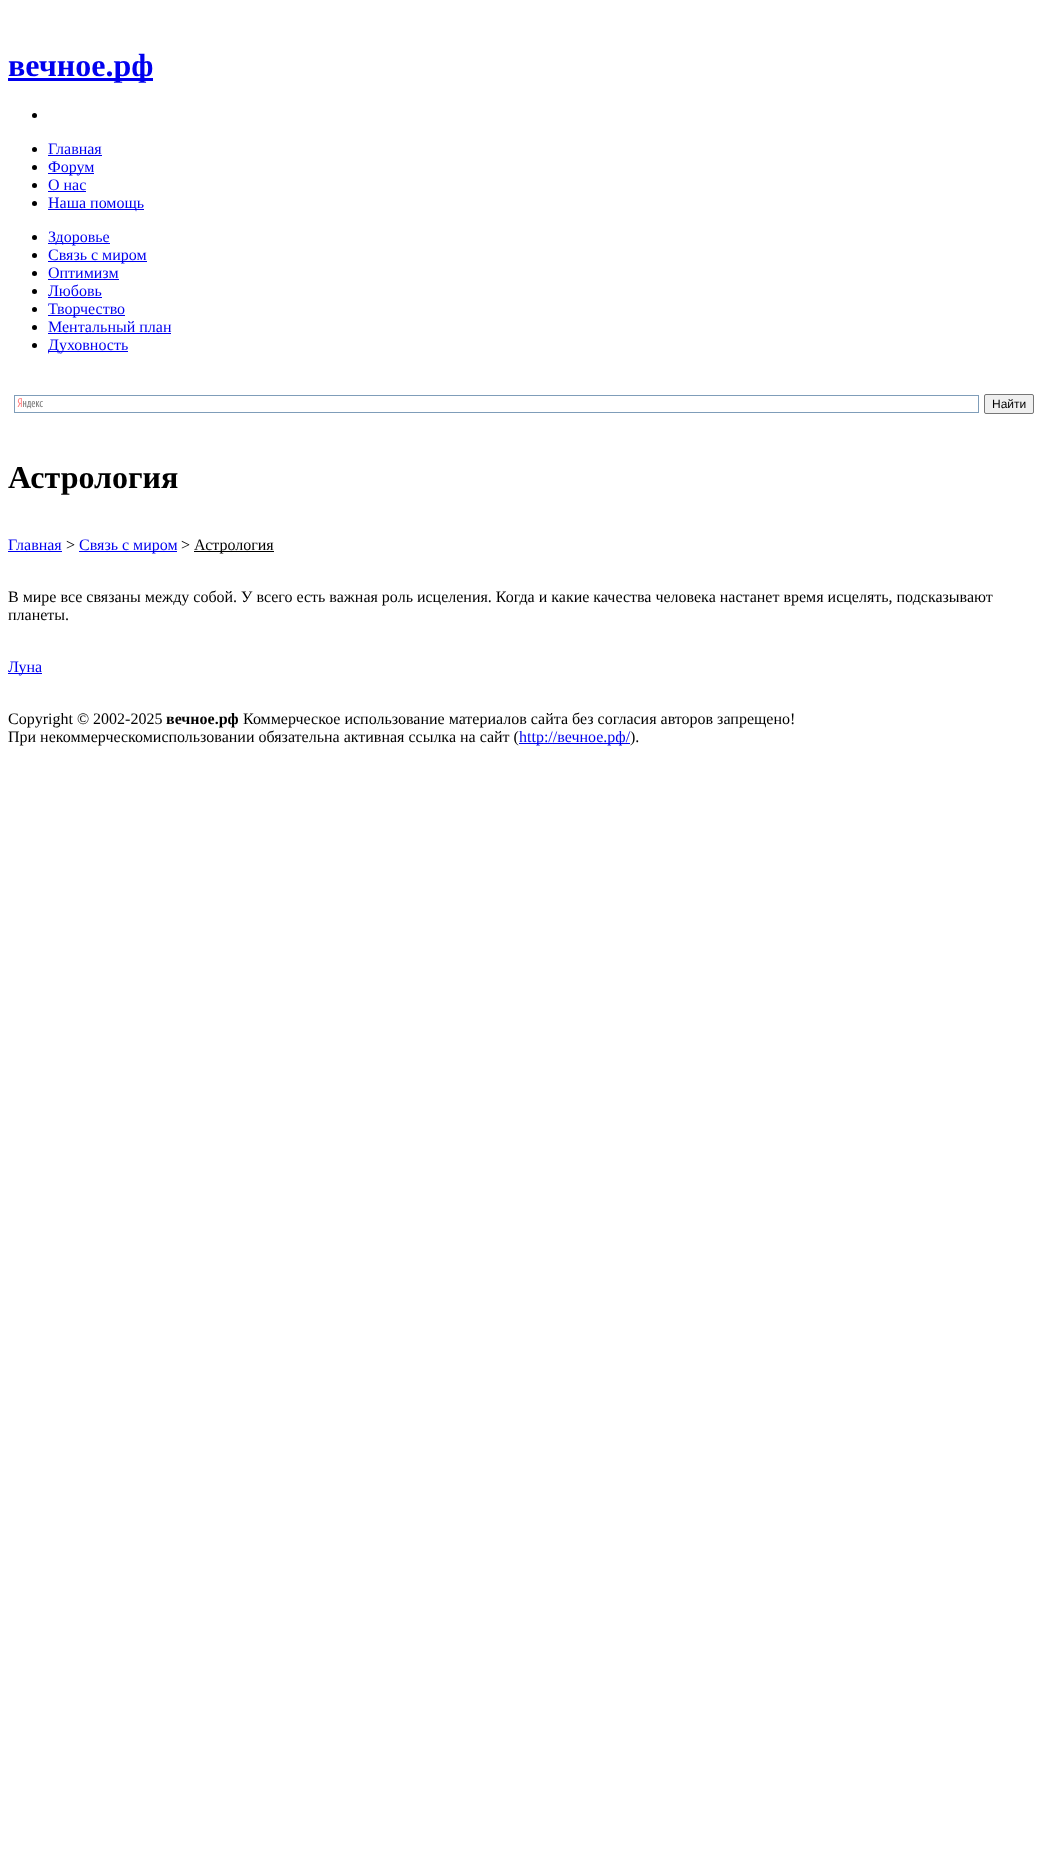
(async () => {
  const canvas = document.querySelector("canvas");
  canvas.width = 1048;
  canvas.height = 1872;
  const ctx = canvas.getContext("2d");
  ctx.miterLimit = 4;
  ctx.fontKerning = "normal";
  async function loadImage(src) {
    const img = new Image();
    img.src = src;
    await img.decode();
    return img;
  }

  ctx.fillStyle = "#ffffff";
  ctx.fillRect(0, 0, 1048, 1872);
  ctx.fillStyle = "#0000ee";
  ctx.fillRect(8, 78, 145, 3);
  ctx.fillStyle = "#000000";
  ctx.beginPath();
  ctx.arc(34.5, 115.5, 2.5, 0, Math.PI * 2);
  ctx.fill();
  ctx.beginPath();
  ctx.arc(34.5, 149.5, 2.5, 0, Math.PI * 2);
  ctx.fill();
  ctx.fillStyle = "#0000ee";
  ctx.fillRect(48, 155, 54, 1);
  ctx.fillStyle = "#000000";
  ctx.beginPath();
  ctx.arc(34.5, 167.5, 2.5, 0, Math.PI * 2);
  ctx.fill();
  ctx.fillStyle = "#0000ee";
  ctx.fillRect(48, 173, 46, 1);
  ctx.fillStyle = "#000000";
  ctx.beginPath();
  ctx.arc(34.5, 185.5, 2.5, 0, Math.PI * 2);
  ctx.fill();
  ctx.fillStyle = "#0000ee";
  ctx.fillRect(48, 191, 38, 1);
  ctx.fillStyle = "#000000";
  ctx.beginPath();
  ctx.arc(34.5, 203.5, 2.5, 0, Math.PI * 2);
  ctx.fill();
  ctx.fillStyle = "#0000ee";
  ctx.fillRect(48, 209, 96, 1);
  ctx.fillStyle = "#000000";
  ctx.beginPath();
  ctx.arc(34.5, 237.5, 2.5, 0, Math.PI * 2);
  ctx.fill();
  ctx.fillStyle = "#0000ee";
  ctx.fillRect(48, 243, 62, 1);
  ctx.fillStyle = "#000000";
  ctx.beginPath();
  ctx.arc(34.5, 255.5, 2.5, 0, Math.PI * 2);
  ctx.fill();
  ctx.fillStyle = "#0000ee";
  ctx.fillRect(48, 261, 99, 1);
  ctx.fillStyle = "#000000";
  ctx.beginPath();
  ctx.arc(34.5, 273.5, 2.5, 0, Math.PI * 2);
  ctx.fill();
  ctx.fillStyle = "#0000ee";
  ctx.fillRect(48, 279, 71, 1);
  ctx.fillStyle = "#000000";
  ctx.beginPath();
  ctx.arc(34.5, 291.5, 2.5, 0, Math.PI * 2);
  ctx.fill();
  ctx.fillStyle = "#0000ee";
  ctx.fillRect(48, 297, 54, 1);
  ctx.fillStyle = "#000000";
  ctx.beginPath();
  ctx.arc(34.5, 309.5, 2.5, 0, Math.PI * 2);
  ctx.fill();
  ctx.fillStyle = "#0000ee";
  ctx.fillRect(48, 315, 77, 1);
  ctx.fillStyle = "#000000";
  ctx.beginPath();
  ctx.arc(34.5, 327.5, 2.5, 0, Math.PI * 2);
  ctx.fill();
  ctx.fillStyle = "#0000ee";
  ctx.fillRect(48, 333, 123, 1);
  ctx.fillStyle = "#000000";
  ctx.beginPath();
  ctx.arc(34.5, 345.5, 2.5, 0, Math.PI * 2);
  ctx.fill();
  ctx.fillStyle = "#0000ee";
  ctx.fillRect(48, 351, 80, 1);
  ctx.drawImage(await loadImage("img/1.png"), 17, 398, 26, 11);
  ctx.strokeStyle = "#7f9db9";
  ctx.strokeRect(14.5, 395.5, 964, 17);
  ctx.fillStyle = "#efefef";
  ctx.beginPath();
  ctx.roundRect(984.5, 394.5, 49, 19, 1.5);
  ctx.fill();
  ctx.strokeStyle = "#767676";
  ctx.stroke();
  for (const [x, y, w, h, color] of [
    [8, 551, 54, 1, "#0000ee"],
    [79, 551, 98, 1, "#0000ee"],
    [194, 551, 80, 1, "#000000"],
    [8, 673, 34, 1, "#0000ee"],
    [519, 743, 111, 1, "#0000ee"],
  ]) {
    ctx.fillStyle = color;
    ctx.fillRect(x, y, w, h);
  }
  ctx.font = "bold 32px Liberation Serif";
  ctx.fillText("вечное.рф", 8, 76);
  ctx.font = "16px Liberation Serif";
  for (const [text, x, y] of [
    ["Главная", 48, 154],
    ["Форум", 48, 172],
    ["О нас", 48, 190],
    ["Наша помощь", 48, 208],
    ["Здоровье", 48, 242],
    ["Связь с миром", 48, 260],
    ["Оптимизм", 48, 278],
    ["Любовь", 48, 296],
    ["Творчество", 48, 314],
    ["Ментальный план", 48, 332],
    ["Духовность", 48, 350],
  ]) {
    ctx.fillText(text, x, y);
  }
  ctx.font = "12px Liberation Sans";
  ctx.fillStyle = "#000000";
  ctx.fillText("Найти", 992, 408);
  ctx.font = "bold 32px Liberation Serif";
  ctx.fillText("Астрология", 8, 488);
  ctx.font = "16px Liberation Serif";
  ctx.fillStyle = "#0000ee";
  ctx.fillText("Главная", 8, 550);
  ctx.fillStyle = "#000000";
  ctx.fillText(">", 66, 550);
  ctx.fillStyle = "#0000ee";
  ctx.fillText("Связь с миром", 79, 550);
  ctx.fillStyle = "#000000";
  for (const [text, x, y] of [
    [">", 181, 550],
    ["Астрология", 194, 550],
    ["В мире все связаны между собой. У всего есть важная роль исцеления. Когда и какие качества человека настанет время исцелять, подсказывают", 8, 602],
    ["планеты.", 8, 620],
  ]) {
    ctx.fillText(text, x, y);
  }
  ctx.fillStyle = "#0000ee";
  ctx.fillText("Луна", 8, 672);
  ctx.fillStyle = "#000000";
  ctx.fillText("Copyright © 2002-2025", 8, 724);
  ctx.font = "bold 16px Liberation Serif";
  ctx.fillText("вечное.рф", 166, 724);
  ctx.font = "16px Liberation Serif";
  ctx.fillText("Коммерческое использование материалов сайта без согласия авторов запрещено!", 243, 724);
  ctx.fillText("При некоммерческомиспользовании обязательна активная ссылка на сайт (", 8, 742);
  ctx.fillStyle = "#0000ee";
  ctx.fillText("http://вечное.рф/", 519, 742);
  ctx.fillStyle = "#000000";
  ctx.fillText(").", 630, 742);
})();
